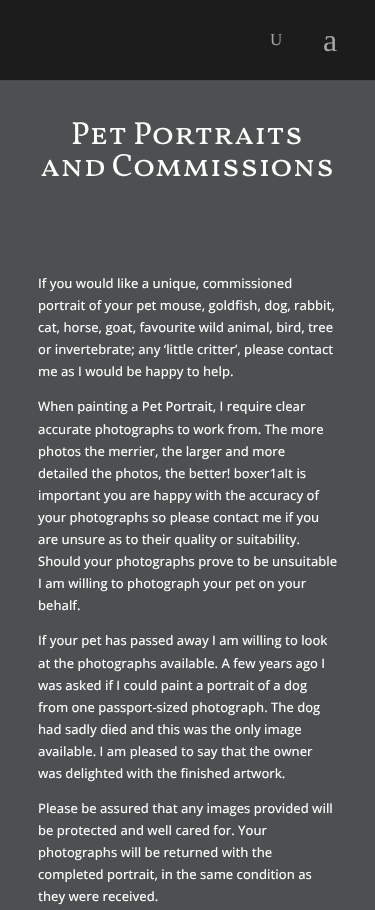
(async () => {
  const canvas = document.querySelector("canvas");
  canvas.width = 375;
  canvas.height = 910;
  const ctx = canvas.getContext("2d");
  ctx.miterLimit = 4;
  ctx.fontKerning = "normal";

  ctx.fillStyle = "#4d5051";
  ctx.fillRect(0, 0, 375, 910);
  ctx.fillStyle = "#454849";
  ctx.fillRect(0, 80, 375, 1);
  ctx.fillStyle = "#1c1c1c";
  ctx.fillRect(0, 0, 375, 80);
  ctx.font = "17px Liberation Serif";
  ctx.fillStyle = "#a4a4a4";
  ctx.fillText("U", 270, 45);
  ctx.font = "32px Liberation Serif";
  ctx.fillText("a", 323, 51);
  ctx.font = "32px Vollkorn SC";
  ctx.fillStyle = "#ffffff";
  ctx.fillText("Pet Portraits", 71, 144);
  ctx.fillText("and Commissions", 40, 176);
  ctx.font = "500 13px Open Sans";
  for (const [text, x, y] of [
    ["If you would like a unique, commissioned", 38, 288],
    ["portrait of your pet mouse, goldfish, dog, rabbit,", 38, 310],
    ["cat, horse, goat, favourite wild animal, bird, tree", 38, 332],
    ["or invertebrate; any ‘little critter’, please contact", 38, 354],
    ["me as I would be happy to help.", 38, 376],
    ["When painting a Pet Portrait, I require clear", 38, 411],
    ["accurate photographs to work from. The more", 38, 434],
    ["photos the merrier, the larger and more", 38, 456],
    ["detailed the photos, the better! boxer1aIt is", 38, 478],
    ["important you are happy with the accuracy of", 38, 500],
    ["your photographs so please contact me if you", 38, 522],
    ["are unsure as to their quality or suitability.", 38, 544],
    ["Should your photographs prove to be unsuitable", 38, 566],
    ["I am willing to photograph your pet on your", 38, 588],
    ["behalf.", 38, 610],
    ["If your pet has passed away I am willing to look", 38, 645],
    ["at the photographs available. A few years ago I", 38, 668],
    ["was asked if I could paint a portrait of a dog", 38, 690],
    ["from one passport-sized photograph. The dog", 38, 712],
    ["had sadly died and this was the only image", 38, 734],
    ["available. I am pleased to say that the owner", 38, 756],
    ["was delighted with the finished artwork.", 38, 778],
    ["Please be assured that any images provided will", 38, 813],
    ["be protected and well cared for. Your", 38, 835],
    ["photographs will be returned with the", 38, 857],
    ["completed portrait, in the same condition as", 38, 879],
    ["they were received.", 38, 901],
  ]) {
    ctx.fillText(text, x, y);
  }
})();
